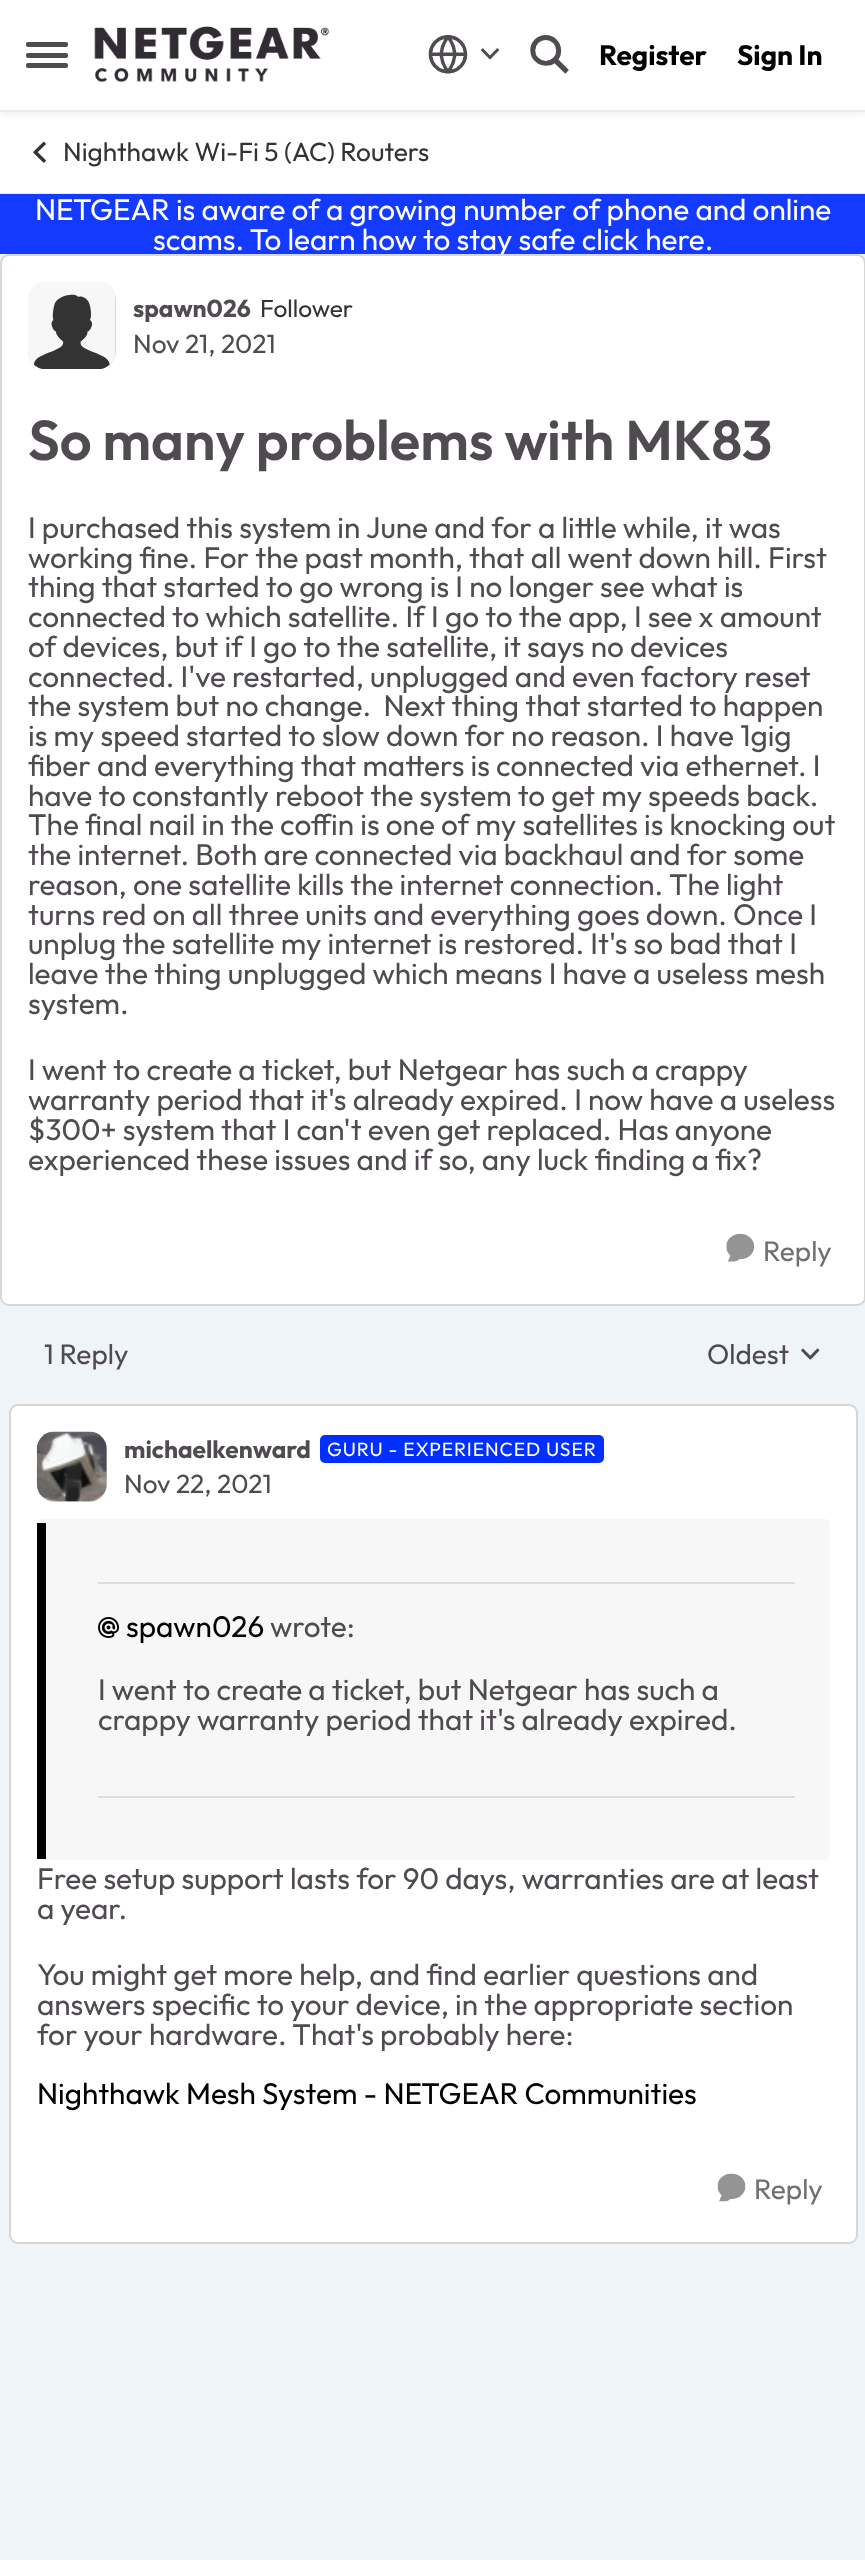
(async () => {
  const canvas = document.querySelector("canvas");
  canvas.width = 865;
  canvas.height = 2560;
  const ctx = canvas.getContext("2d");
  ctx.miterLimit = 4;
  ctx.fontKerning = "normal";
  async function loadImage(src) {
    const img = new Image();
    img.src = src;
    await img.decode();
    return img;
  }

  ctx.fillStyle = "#eff4f9";
  ctx.fillRect(0, 0, 865, 2560);
  ctx.fillStyle = "#ffffff";
  ctx.fillRect(0, 0, 865, 193);
  ctx.save();
  ctx.beginPath();
  ctx.rect(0, 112, 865, 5);
  ctx.clip();
  ctx.fillStyle = "rgba(51, 51, 51, 0.06)";
  ctx.filter = "blur(3.5px)";
  ctx.beginPath();
  ctx.rect(0, 4, 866, 112);
  ctx.fill();
  ctx.filter = "none";
  ctx.restore();
  ctx.fillStyle = "#ebebeb";
  ctx.fillRect(0, 110, 865, 2);
  ctx.fillStyle = "#504b51";
  ctx.beginPath();
  ctx.roundRect(26, 42, 42, 5, 2);
  ctx.fill();
  ctx.beginPath();
  ctx.roundRect(26, 53, 42, 5, 2);
  ctx.fill();
  ctx.beginPath();
  ctx.roundRect(26, 63, 42, 5, 2);
  ctx.fill();
  ctx.drawImage(await loadImage("img/1.png"), 94, 26, 235, 57);
  ctx.drawImage(await loadImage("img/2.png"), 428, 35, 40, 39);
  ctx.drawImage(await loadImage("img/3.png"), 480, 48, 20, 12);
  ctx.drawImage(await loadImage("img/4.png"), 530, 35, 39, 39);
  ctx.fillStyle = "#ebebeb";
  ctx.fillRect(0, 193, 865, 1);
  ctx.drawImage(await loadImage("img/5.png"), 33, 141, 13, 22);
  ctx.fillStyle = "#1439ff";
  ctx.fillRect(0, 194, 865, 60);
  ctx.fillStyle = "#ffffff";
  ctx.beginPath();
  ctx.roundRect(0, 254, 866, 1052, 9);
  ctx.fill();
  ctx.drawImage(await loadImage("img/8.png"), 801, 1348, 19, 12);
  ctx.beginPath();
  ctx.roundRect(9, 1404, 849, 840, 9);
  ctx.fill();
  ctx.beginPath();
  ctx.roundRect(10, 1405, 847, 838, 8);
  ctx.strokeStyle = "rgba(0, 0, 0, 0.16)";
  ctx.lineWidth = 2;
  ctx.stroke();
  ctx.fillStyle = "#d9d9d9";
  ctx.beginPath();
  ctx.roundRect(37, 1432, 70, 70, 18);
  ctx.fill();
  ctx.drawImage(await loadImage("img/9.png"), 36, 1431, 71, 71);
  ctx.fillStyle = "#002fff";
  ctx.beginPath();
  ctx.roundRect(321, 1436, 282, 26, 4);
  ctx.fill();
  ctx.strokeStyle = "#002fff";
  ctx.stroke();
  ctx.fillStyle = "#f7f7f7";
  ctx.beginPath();
  ctx.roundRect(37, 1519, 793, 341, 5);
  ctx.fill();
  ctx.fillStyle = "#000000";
  ctx.fillRect(37, 1523, 9, 336);
  ctx.fillStyle = "#dedede";
  ctx.fillRect(98, 1582, 697, 2);
  ctx.drawImage(await loadImage("img/10.png"), 98, 1617, 21, 21);
  ctx.fillRect(98, 1796, 697, 2);
  ctx.drawImage(await loadImage("img/11.png"), 717, 2173, 29, 29);
  ctx.font = "bold 28px Outfit";
  ctx.fillStyle = "#000000";
  ctx.fillText("Register", 599, 65);
  ctx.fillText("Sign In", 737, 65);
  ctx.font = "26.25px Outfit";
  ctx.fillStyle = "#333333";
  ctx.fillText("Nighthawk Wi-Fi 5 (AC) Routers", 63, 161);
  ctx.font = "29.75px Outfit";
  ctx.fillStyle = "#ffffff";
  ctx.fillText("NETGEAR is aware of a growing number of phone and online", 35, 220);
  ctx.fillText("scams. To learn how to stay safe click here.", 153, 250);
  ctx.beginPath();
  ctx.roundRect(1, 255, 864, 1050, 8);
  ctx.strokeStyle = "rgba(0, 0, 0, 0.16)";
  ctx.stroke();
  ctx.fillStyle = "#d9d9d9";
  ctx.beginPath();
  ctx.roundRect(28, 282, 88, 87, 18);
  ctx.fill();
  ctx.drawImage(await loadImage("img/6.png"), 28, 282, 87, 87);
  ctx.font = "bold 24.5px Outfit";
  ctx.fillStyle = "#504b51";
  ctx.fillText("spawn026", 133, 317);
  ctx.font = "24.5px Outfit";
  ctx.fillStyle = "#333333";
  ctx.fillText("Follower", 260, 317);
  ctx.font = "26.25px Outfit";
  ctx.fillStyle = "#504b51";
  ctx.fillText("Nov 21, 2021", 133, 353);
  ctx.font = "600 56px Outfit";
  ctx.fillText("So many problems with MK83", 28, 460);
  ctx.font = "29.75px Outfit";
  for (const [text, x, y] of [
    ["I purchased this system in June and for a little while, it was", 28, 538],
    ["working fine. For the past month, that all went down hill. First", 28, 568],
    ["thing that started to go wrong is I no longer see what is", 28, 597],
    ["connected to which satellite. If I go to the app, I see x amount", 28, 627],
    ["of devices, but if I go to the satellite, it says no devices", 28, 657],
    ["connected. I've restarted, unplugged and even factory reset", 28, 687],
    ["the system but no change.  Next thing that started to happen", 28, 716],
    ["is my speed started to slow down for no reason. I have 1gig", 28, 746],
    ["fiber and everything that matters is connected via ethernet. I", 28, 776],
    ["have to constantly reboot the system to get my speeds back.", 28, 806],
    ["The final nail in the coffin is one of my satellites is knocking out", 28, 835],
    ["the internet. Both are connected via backhaul and for some", 28, 865],
    ["reason, one satellite kills the internet connection. The light", 28, 895],
    ["turns red on all three units and everything goes down. Once I", 28, 925],
    ["unplug the satellite my internet is restored. It's so bad that I", 28, 954],
    ["leave the thing unplugged which means I have a useless mesh", 28, 984],
    ["system.", 28, 1014],
    ["I went to create a ticket, but Netgear has such a crappy", 28, 1080],
    ["warranty period that it's already expired. I now have a useless", 28, 1110],
    ["$300+ system that I can't even get replaced. Has anyone", 28, 1140],
    ["experienced these issues and if so, any luck finding a fix?", 28, 1170],
  ]) {
    ctx.fillText(text, x, y);
  }
  ctx.drawImage(await loadImage("img/7.png"), 726, 1233, 29, 29);
  ctx.font = "28px Outfit";
  ctx.fillStyle = "#707070";
  ctx.fillText("Reply", 763, 1261);
  ctx.fillStyle = "#504b51";
  ctx.fillText("1 Reply", 44, 1364);
  ctx.fillText("Oldest", 707, 1364);
  ctx.font = "bold 24.5px Outfit";
  ctx.fillText("michaelkenward", 124, 1458);
  ctx.letterSpacing = "0.9px";
  ctx.font = "19.25px Outfit";
  ctx.fillStyle = "#ffffff";
  ctx.fillText("GURU - EXPERIENCED USER", 327, 1456);
  ctx.letterSpacing = "0px";
  ctx.font = "26.25px Outfit";
  ctx.fillStyle = "#504b51";
  ctx.fillText("Nov 22, 2021", 124, 1493);
  ctx.font = "29.75px Outfit";
  ctx.fillStyle = "#000000";
  ctx.fillText("spawn026", 126, 1637);
  ctx.fillStyle = "#504b51";
  for (const [text, x, y] of [
    ["wrote:", 270, 1637],
    ["I went to create a ticket, but Netgear has such a", 98, 1700],
    ["crappy warranty period that it's already expired.", 98, 1730],
    ["Free setup support lasts for 90 days, warranties are at least", 37, 1889],
    ["a year.", 37, 1919],
    ["You might get more help, and find earlier questions and", 37, 1985],
    ["answers specific to your device, in the appropriate section", 37, 2015],
    ["for your hardware. That's probably here:", 37, 2045],
  ]) {
    ctx.fillText(text, x, y);
  }
  ctx.fillStyle = "#000000";
  ctx.fillText("Nighthawk Mesh System - NETGEAR Communities", 37, 2104);
  ctx.font = "28px Outfit";
  ctx.fillStyle = "#707070";
  ctx.fillText("Reply", 754, 2199);
})();
